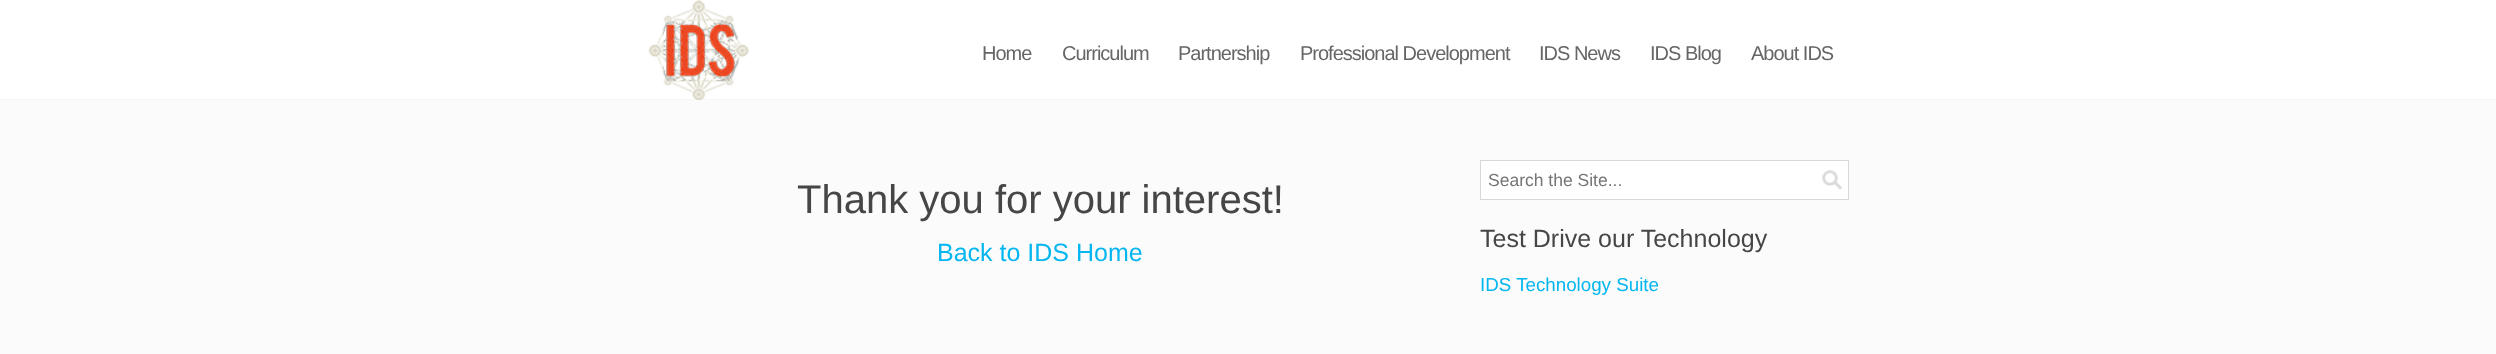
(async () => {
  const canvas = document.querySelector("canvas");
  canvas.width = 2496;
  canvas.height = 354;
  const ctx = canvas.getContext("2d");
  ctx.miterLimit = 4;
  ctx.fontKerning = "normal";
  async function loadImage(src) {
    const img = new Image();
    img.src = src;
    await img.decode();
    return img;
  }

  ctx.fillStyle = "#fbfbfb";
  ctx.fillRect(0, 0, 2496, 354);
  ctx.fillStyle = "#ffffff";
  ctx.fillRect(0, 0, 2496, 99);
  ctx.fillStyle = "#f7f7f7";
  ctx.fillRect(0, 99, 2496, 1);
  ctx.drawImage(await loadImage("img/1.png"), 648, 0, 101, 100);
  ctx.fillStyle = "#ffffff";
  ctx.fillRect(1481, 161, 367, 38);
  ctx.drawImage(await loadImage("img/2.png"), 1822, 170, 21, 20);
  ctx.strokeStyle = "#d7d7d7";
  ctx.strokeRect(1480.5, 160.5, 368, 39);
  ctx.letterSpacing = "-1px";
  ctx.font = "20px Liberation Sans";
  ctx.fillStyle = "#666666";
  for (const [text, x, y] of [
    ["Home", 982, 60],
    ["Curriculum", 1062, 60],
    ["Partnership", 1178, 60],
    ["Professional Development", 1300, 60],
    ["IDS News", 1539, 60],
    ["IDS Blog", 1650, 60],
    ["About IDS", 1751, 60],
  ]) {
    ctx.fillText(text, x, y);
  }
  ctx.letterSpacing = "0px";
  ctx.font = "40px Liberation Sans";
  ctx.fillStyle = "#464646";
  ctx.fillText("Thank you for your interest!", 797, 213);
  ctx.font = "25px Liberation Sans";
  ctx.fillStyle = "#04b6f0";
  ctx.fillText("Back to IDS Home", 937, 261);
  ctx.font = "17.5px Liberation Sans";
  ctx.fillStyle = "#757575";
  ctx.fillText("Search the Site...", 1488, 186);
  ctx.font = "25px Liberation Sans";
  ctx.fillStyle = "#464646";
  ctx.fillText("Test Drive our Technology", 1480, 247);
  ctx.font = "18.75px Liberation Sans";
  ctx.fillStyle = "#04b6f0";
  ctx.fillText("IDS Technology Suite", 1480, 291);
})();
